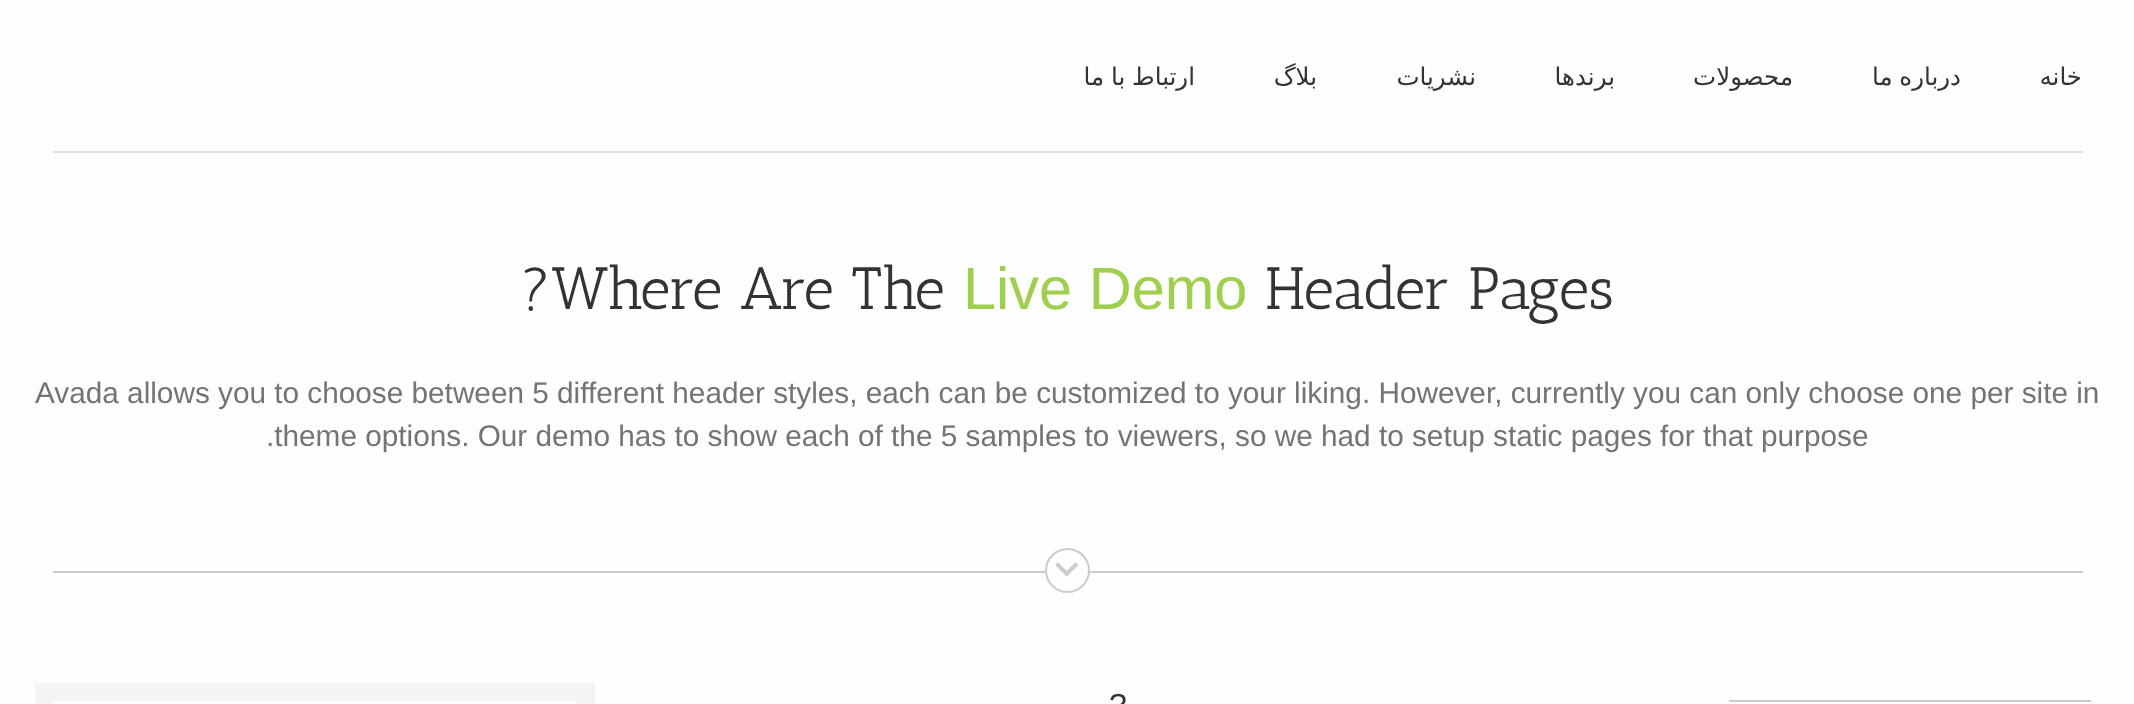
(async () => {
  const canvas = document.querySelector("canvas");
  canvas.width = 2134;
  canvas.height = 704;
  const ctx = canvas.getContext("2d");
  ctx.miterLimit = 4;
  ctx.fontKerning = "normal";
  async function loadImage(src) {
    const img = new Image();
    img.src = src;
    await img.decode();
    return img;
  }

  ctx.fillStyle = "#fefefe";
  ctx.fillRect(0, 0, 2134, 704);
  ctx.fillStyle = "#e0dede";
  ctx.fillRect(53, 151, 2030, 2);
  ctx.fillStyle = "#cccccc";
  ctx.fillRect(53, 571, 992, 2);
  ctx.beginPath();
  ctx.arc(1067.5, 570.5, 21.5, 0, Math.PI * 2);
  ctx.strokeStyle = "#cccccc";
  ctx.lineWidth = 2;
  ctx.stroke();
  ctx.drawImage(await loadImage("img/1.png"), 1055, 562, 23, 15);
  ctx.fillRect(1090, 571, 993, 2);
  ctx.strokeStyle = "#f4f4f4";
  ctx.lineWidth = 18;
  ctx.strokeRect(44, 692, 542, 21);
  ctx.fillStyle = "#c9c9c9";
  ctx.fillRect(1729, 700, 362, 2);
  ctx.wordSpacing = "-1px";
  ctx.direction = "rtl";
  ctx.font = "24.5px DejaVu Sans";
  ctx.fillStyle = "#333333";
  ctx.fillText("ارتباط با ما", 1195, 85);
  ctx.wordSpacing = "0px";
  for (const [text, x, y] of [
    ["بلاگ", 1317, 85],
    ["نشریات", 1476, 85],
    ["برندها", 1615, 85],
    ["محصولات", 1793, 85],
  ]) {
    ctx.fillText(text, x, y);
  }
  ctx.wordSpacing = "-1px";
  ctx.fillText("درباره ما", 1961, 85);
  ctx.wordSpacing = "0px";
  ctx.fillText("خانه", 2082, 85);
  ctx.direction = "ltr";
  ctx.font = "59.5px Antic Slab";
  ctx.fillText("?", 521, 309);
  ctx.fillText("Where Are The", 551, 309);
  ctx.font = "59.5px Liberation Sans";
  ctx.fillStyle = "#a0ce4e";
  ctx.fillText("Live Demo", 963, 309);
  ctx.font = "59.5px Antic Slab";
  ctx.fillStyle = "#333333";
  ctx.fillText("Header Pages", 1265, 309);
  ctx.font = "29.75px Liberation Sans";
  ctx.fillStyle = "#747474";
  ctx.fillText("Avada allows you to choose between 5 different header styles, each can be customized to your liking. However, currently you can only choose one per site in", 35, 403);
  ctx.fillText(".theme options. Our demo has to show each of the 5 samples to viewers, so we had to setup static pages for that purpose", 266, 446);
  ctx.font = "32px Liberation Sans";
  ctx.fillStyle = "#333333";
  ctx.fillText("?", 1109, 716);
})();
